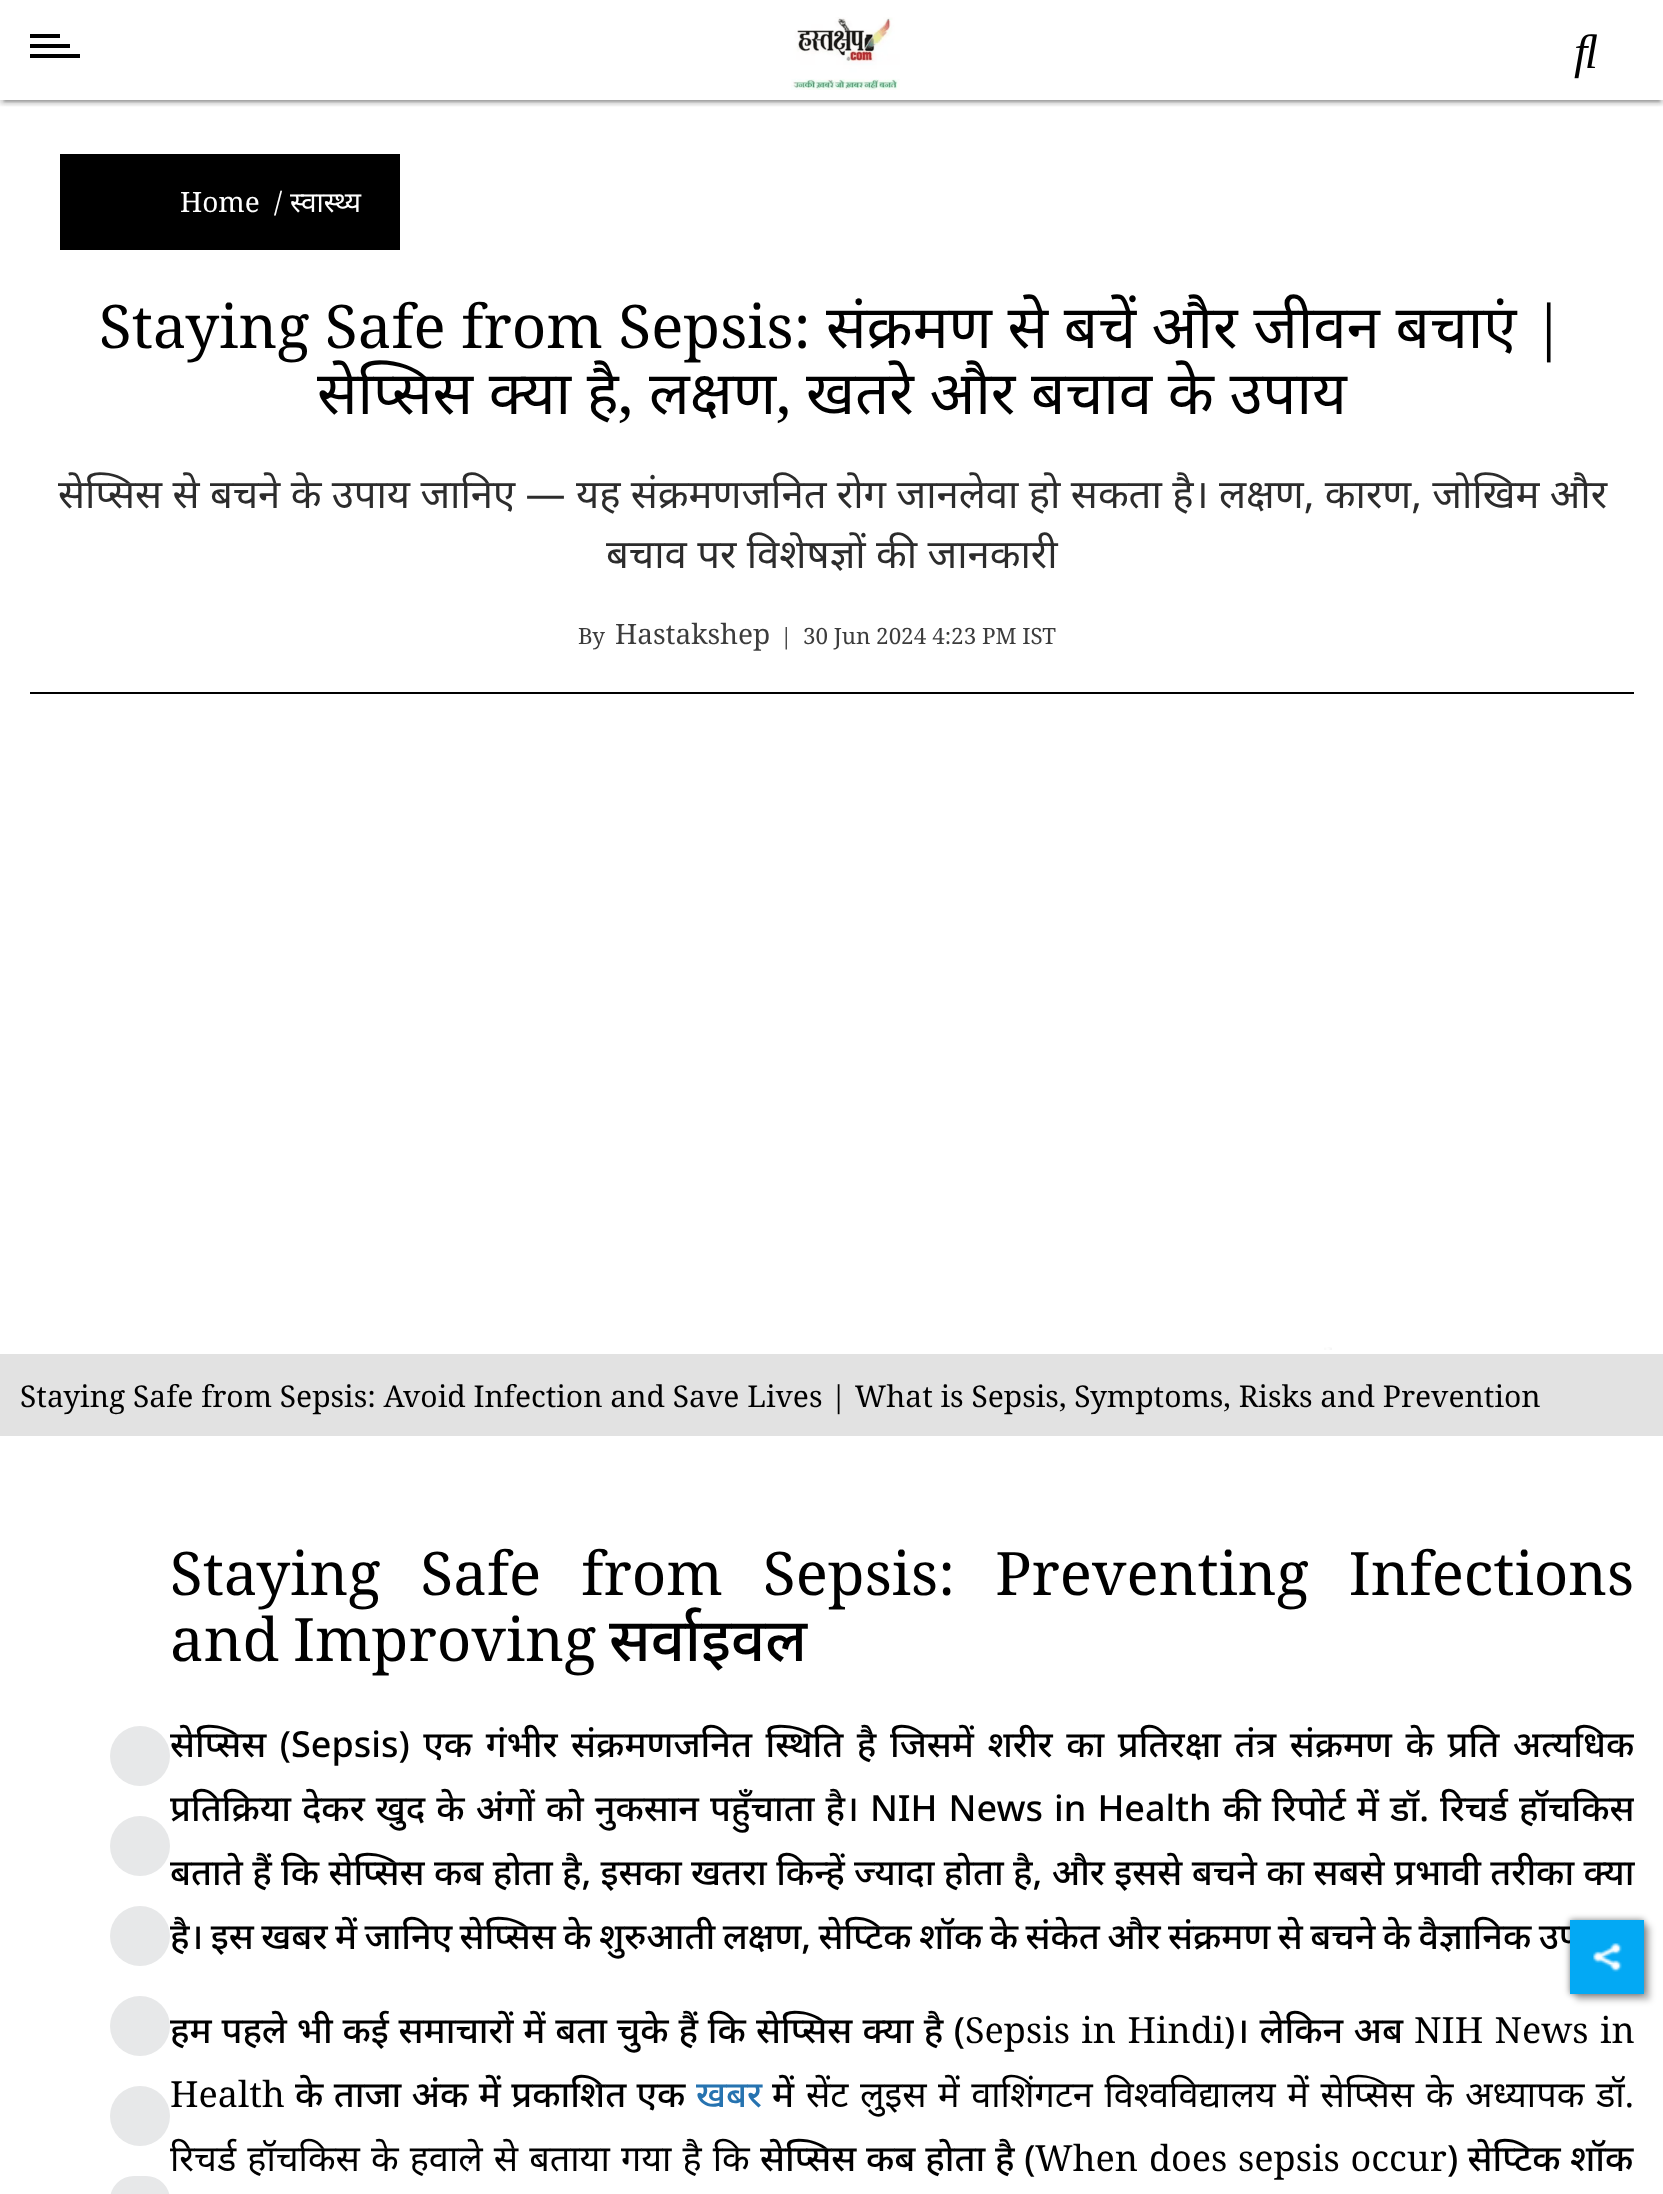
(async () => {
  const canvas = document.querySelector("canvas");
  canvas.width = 1663;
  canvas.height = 2194;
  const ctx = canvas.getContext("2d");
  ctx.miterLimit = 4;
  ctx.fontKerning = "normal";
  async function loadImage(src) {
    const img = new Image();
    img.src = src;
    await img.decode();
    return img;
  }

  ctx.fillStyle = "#ffffff";
  ctx.fillRect(0, 0, 1663, 2194);
  ctx.save();
  ctx.beginPath();
  ctx.rect(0, 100, 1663, 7);
  ctx.clip();
  ctx.fillStyle = "rgba(0, 0, 0, 0.12)";
  ctx.filter = "blur(5px)";
  ctx.beginPath();
  ctx.rect(0, 2, 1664, 100);
  ctx.fill();
  ctx.filter = "none";
  ctx.restore();
  ctx.save();
  ctx.beginPath();
  ctx.rect(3, 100, 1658, 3);
  ctx.clip();
  ctx.fillStyle = "rgba(0, 0, 0, 0.2)";
  ctx.filter = "blur(1px)";
  ctx.beginPath();
  ctx.rect(4, 10, 1656, 92);
  ctx.fill();
  ctx.filter = "none";
  ctx.restore();
  ctx.save();
  ctx.beginPath();
  ctx.rect(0, 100, 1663, 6);
  ctx.clip();
  ctx.fillStyle = "rgba(0, 0, 0, 0.14)";
  ctx.filter = "blur(2px)";
  ctx.beginPath();
  ctx.rect(0, 4, 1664, 100);
  ctx.fill();
  ctx.filter = "none";
  ctx.restore();
  for (const [x, y, w, h, color] of [
    [30, 54, 50, 4, "#000000"],
    [30, 34, 30, 4, "#000000"],
    [30, 44, 40, 4, "#000000"],
  ]) {
    ctx.fillStyle = color;
    ctx.fillRect(x, y, w, h);
  }
  ctx.drawImage(await loadImage("img/1.png"), 791, 17, 109, 73);
  ctx.drawImage(await loadImage("img/2.png"), 1574, 34, 23, 45);
  ctx.fillRect(60, 154, 340, 96);
  ctx.fillRect(30, 692, 1604, 2);
  ctx.drawImage(await loadImage("img/3.png"), 1324, 1347, 8, 3);
  ctx.fillStyle = "#e2e2e2";
  ctx.fillRect(0, 1354, 1663, 82);
  ctx.fillStyle = "#e7e8e9";
  ctx.beginPath();
  ctx.arc(140, 1756, 30, 0, Math.PI * 2);
  ctx.fill();
  ctx.beginPath();
  ctx.arc(140, 1846, 30, 0, Math.PI * 2);
  ctx.fill();
  ctx.beginPath();
  ctx.arc(140, 1936, 30, 0, Math.PI * 2);
  ctx.fill();
  ctx.beginPath();
  ctx.arc(140, 2026, 30, 0, Math.PI * 2);
  ctx.fill();
  ctx.beginPath();
  ctx.arc(140, 2116, 30, 0, Math.PI * 2);
  ctx.fill();
  ctx.beginPath();
  ctx.roundRect(110, 2176, 60, 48, 30);
  ctx.fill();
  ctx.fillStyle = "rgba(0, 0, 0, 0.25)";
  ctx.filter = "blur(3px)";
  ctx.beginPath();
  ctx.rect(1576, 1926, 74, 74);
  ctx.fill();
  ctx.filter = "none";
  ctx.fillStyle = "rgba(0, 0, 0, 0.5)";
  ctx.filter = "blur(3px)";
  ctx.beginPath();
  ctx.rect(1570, 1920, 74, 74);
  ctx.fill();
  ctx.filter = "none";
  ctx.font = "28px Noto Serif";
  ctx.fillStyle = "#ffffff";
  ctx.fillText("Home", 180, 212);
  ctx.fillText("/", 274, 212);
  ctx.font = "28px Noto Sans";
  ctx.fillText("स्वास्थ्य", 290, 212);
  ctx.font = "60px Noto Serif";
  ctx.fillStyle = "#000000";
  ctx.fillText("Staying Safe from Sepsis:", 99, 348);
  ctx.font = "60px Noto Sans";
  ctx.fillText("संक्रमण से बचें और जीवन बचाएं", 826, 348);
  ctx.font = "60px Noto Serif";
  ctx.fillText("|", 1532, 348);
  ctx.font = "60px Noto Sans";
  ctx.fillText("सेप्सिस क्या है", 317, 414);
  ctx.font = "60px Noto Serif";
  ctx.fillText(",", 618, 414);
  ctx.font = "60px Noto Sans";
  ctx.fillText("लक्षण", 649, 414);
  ctx.font = "60px Noto Serif";
  ctx.fillText(",", 776, 414);
  ctx.font = "60px Noto Sans";
  ctx.fillText("खतरे और बचाव के उपाय", 806, 414);
  ctx.font = "40px Noto Sans";
  ctx.fillStyle = "#2c2c2c";
  ctx.fillText("सेप्सिस से बचने के उपाय जानिए — यह संक्रमणजनित रोग जानलेवा हो सकता है। लक्षण, कारण, जोखिम और", 58, 508);
  ctx.fillText("बचाव पर विशेषज्ञों की जानकारी", 606, 568);
  ctx.font = "22.4px Noto Serif";
  ctx.fillStyle = "#3c3c3c";
  ctx.fillText("By", 578, 644);
  ctx.font = "28px Noto Serif";
  ctx.fillText("Hastakshep", 615, 644);
  ctx.font = "22.4px Noto Serif";
  ctx.fillText("|", 780, 644);
  ctx.fillText("30 Jun 2024 4:23 PM IST", 803, 644);
  ctx.font = "30px Noto Serif";
  ctx.fillStyle = "#000000";
  ctx.fillText("Staying Safe from Sepsis: Avoid Infection and Save Lives | What is Sepsis, Symptoms, Risks and Prevention", 20, 1407);
  ctx.wordSpacing = "24.5px";
  ctx.font = "60px Noto Serif";
  ctx.fillText("Staying Safe from Sepsis: Preventing Infections", 170, 1595);
  ctx.wordSpacing = "-2px";
  ctx.fillText("and Improving", 170, 1661);
  ctx.wordSpacing = "0px";
  ctx.font = "500 60px Noto Sans";
  ctx.fillText("सर्वाइवल", 609, 1661);
  ctx.save();
  ctx.beginPath();
  ctx.rect(170, 1498, 1464, 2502);
  ctx.clip();
  ctx.wordSpacing = "4.25px";
  ctx.font = "500 36px Noto Sans";
  ctx.fillText("सेप्सिस (Sepsis) एक गंभीर संक्रमणजनित स्थिति है जिसमें शरीर का प्रतिरक्षा तंत्र संक्रमण के प्रति अत्यधिक", 170, 1757);
  ctx.wordSpacing = "1.7px";
  ctx.fillText("प्रतिक्रिया देकर खुद के अंगों को नुकसान पहुँचाता है। NIH News in Health की रिपोर्ट में डॉ. रिचर्ड हॉचकिस", 170, 1821);
  ctx.restore();
  ctx.font = "500 36px Noto Sans";
  ctx.fillText("बताते हैं कि सेप्सिस कब होता है, इसका खतरा किन्हें ज्यादा होता है, और इससे बचने का सबसे प्रभावी तरीका क्या", 170, 1885);
  ctx.wordSpacing = "-1.9px";
  ctx.fillText("है। इस खबर में जानिए सेप्सिस के शुरुआती लक्षण, सेप्टिक शॉक के संकेत और संक्रमण से बचने के वैज्ञानिक उप", 170, 1949);
  ctx.wordSpacing = "0.5px";
  ctx.fillText("हम पहले भी कई समाचारों में बता चुके हैं कि", 170, 2043);
  ctx.wordSpacing = "1px";
  ctx.fillText("सेप्सिस क्या है (", 756, 2043);
  ctx.wordSpacing = "2px";
  ctx.font = "36px Noto Serif";
  ctx.fillText("Sepsis in Hindi", 965, 2043);
  ctx.wordSpacing = "1px";
  ctx.font = "500 36px Noto Sans";
  ctx.fillText(")। लेकिन अब", 1224, 2043);
  ctx.wordSpacing = "2px";
  ctx.font = "36px Noto Serif";
  ctx.fillText("NIH News in", 1414, 2043);
  ctx.wordSpacing = "0px";
  ctx.fillText("Health", 170, 2107);
  ctx.wordSpacing = "1px";
  ctx.font = "500 36px Noto Sans";
  ctx.fillText("के ताजा अंक में प्रकाशित एक", 295, 2107);
  ctx.wordSpacing = "0px";
  ctx.fillStyle = "#2673b0";
  ctx.fillText("खबर", 696, 2107);
  ctx.fillStyle = "#000000";
  ctx.fillText("में", 772, 2107);
  ctx.wordSpacing = "2.25px";
  ctx.font = "36px Noto Sans";
  ctx.fillText("सेंट लुइस में वाशिंगटन विश्वविद्यालय में सेप्सिस के अध्यापक डॉ.", 806, 2107);
  ctx.wordSpacing = "1.75px";
  ctx.fillText("रिचर्ड हॉचकिस के हवाले से बताया गया है कि", 170, 2171);
  ctx.wordSpacing = "0.5px";
  ctx.font = "500 36px Noto Sans";
  ctx.fillText("सेप्सिस कब होता है (", 760, 2171);
  ctx.wordSpacing = "1.5px";
  ctx.font = "36px Noto Serif";
  ctx.fillText("When does sepsis occur", 1035, 2171);
  ctx.save();
  ctx.beginPath();
  ctx.rect(170, 1498, 1464, 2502);
  ctx.clip();
  ctx.wordSpacing = "0px";
  ctx.font = "500 36px Noto Sans";
  ctx.fillText(") सेप्टिक शॉक", 1447, 2171);
  ctx.restore();
  ctx.fillStyle = "#03a9f4";
  ctx.fillRect(1570, 1920, 74, 74);
  ctx.drawImage(await loadImage("img/4.png"), 1593, 1943, 29, 29);
})();
